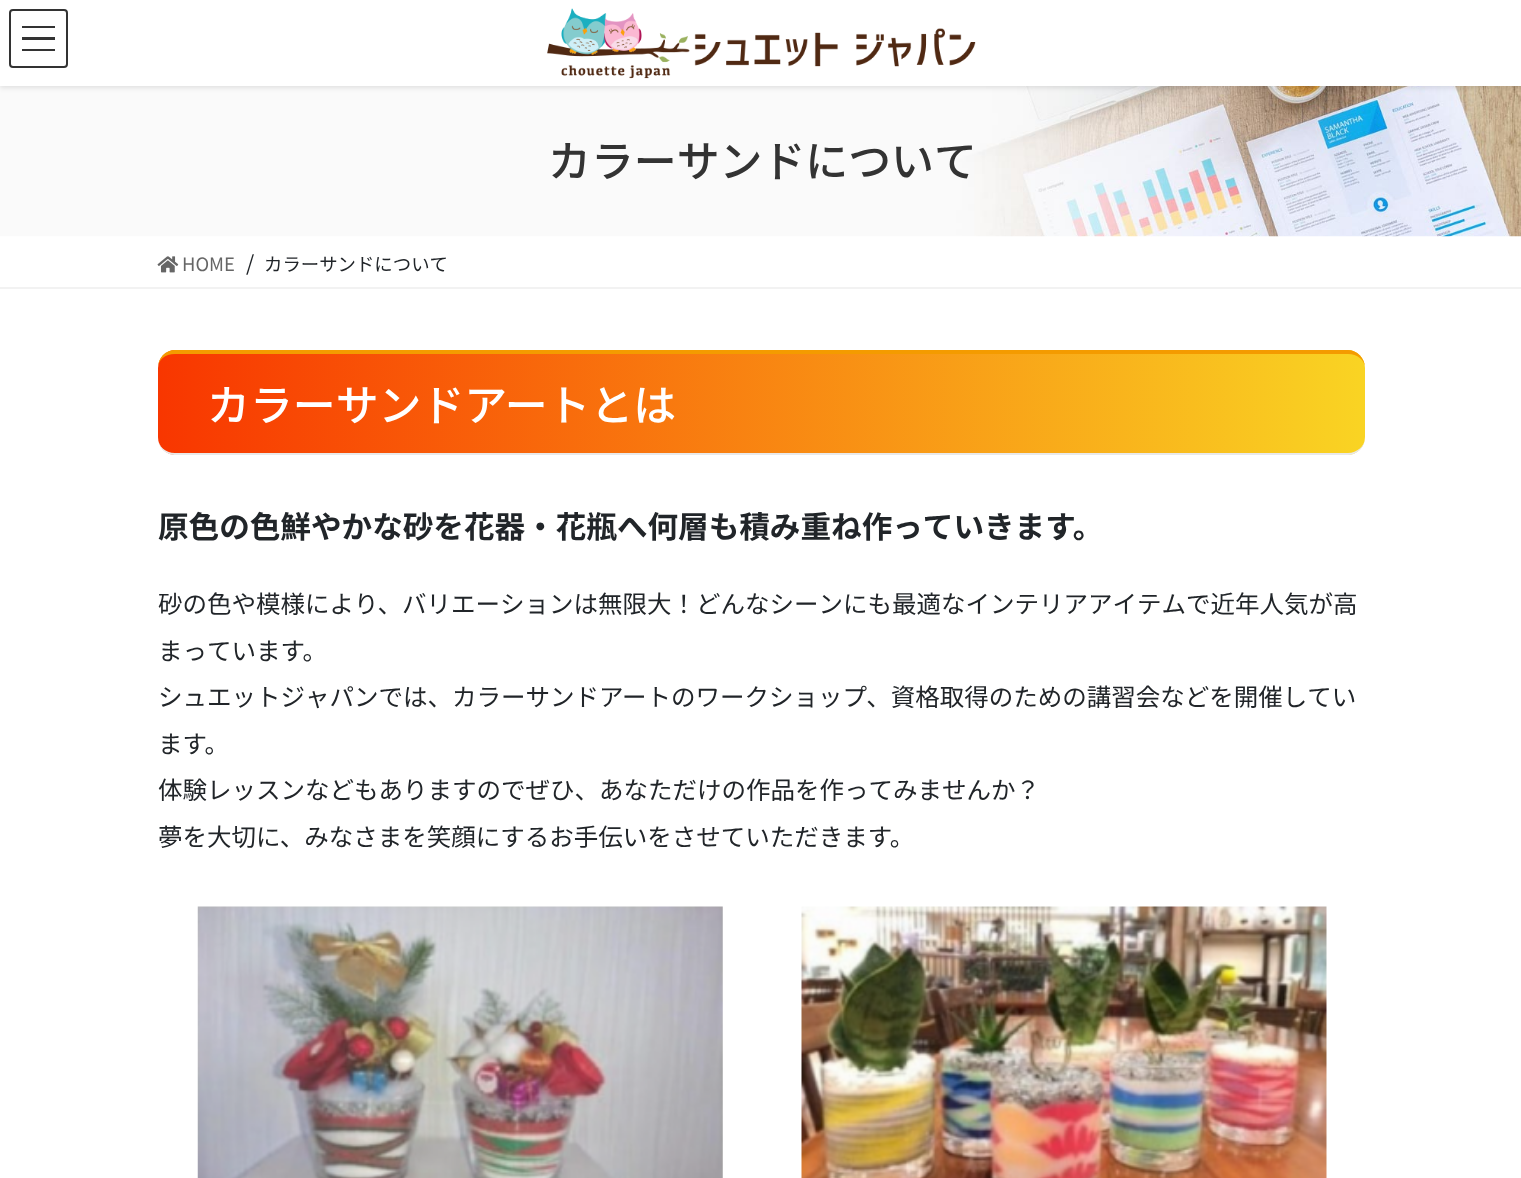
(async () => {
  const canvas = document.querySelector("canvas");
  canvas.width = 1521;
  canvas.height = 1178;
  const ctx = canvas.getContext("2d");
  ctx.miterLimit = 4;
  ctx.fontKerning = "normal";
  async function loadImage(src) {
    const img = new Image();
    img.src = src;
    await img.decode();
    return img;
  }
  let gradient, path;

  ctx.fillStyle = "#ffffff";
  ctx.fillRect(0, 0, 1521, 1178);
  ctx.drawImage(await loadImage("img/2.png"), 0, 86, 1521, 151);
  ctx.fillStyle = "rgba(0, 0, 0, 0.1)";
  ctx.filter = "blur(2.5px)";
  ctx.beginPath();
  ctx.rect(0, 2, 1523, 86);
  ctx.fill();
  ctx.filter = "none";
  ctx.fillStyle = "#ffffff";
  ctx.fillRect(0, 0, 1521, 86);
  ctx.drawImage(await loadImage("img/1.png"), 547, 8, 429, 71);
  for (const [x, y, w, h, color] of [
    [22, 26, 33, 2, "#333333"],
    [22, 37, 33, 3, "#333333"],
    [22, 49, 33, 2, "#333333"],
  ]) {
    ctx.fillStyle = color;
    ctx.fillRect(x, y, w, h);
  }
  ctx.beginPath();
  ctx.roundRect(10, 10, 57, 57, 3);
  ctx.strokeStyle = "#333333";
  ctx.lineWidth = 2;
  ctx.stroke();
  ctx.fillStyle = "#f2f2f2";
  ctx.fillRect(0, 287, 1521, 2);
  ctx.drawImage(await loadImage("img/3.png"), 157, 256, 22, 17);
  gradient = ctx.createLinearGradient(158, 403, 1365, 403);
  gradient.addColorStop(0, "#f83600");
  gradient.addColorStop(1, "#f9d423");
  ctx.fillStyle = gradient;
  ctx.beginPath();
  ctx.roundRect(158, 350, 1207, 105, 18);
  ctx.fill();
  ctx.fillStyle = "#f49b00";
  path = new Path2D("M175 350C165 350 158 358 158 368C158 360 165 354 175 354H1348C1357 354 1365 360 1365 368C1365 358 1357 350 1348 350Z");
  ctx.fill(path);
  ctx.fillStyle = "#e9e9e9";
  path = new Path2D("M1348 455C1357 455 1365 447 1365 438C1365 446 1357 453 1348 453H175C165 453 158 446 158 438C158 447 165 455 175 455Z");
  ctx.fill(path);
  ctx.drawImage(await loadImage("img/4.png"), 197, 906, 526, 272);
  ctx.drawImage(await loadImage("img/5.png"), 801, 906, 526, 272);
  ctx.font = "500 42.9px Noto Sans JP";
  ctx.fillStyle = "#333333";
  ctx.fillText("カラーサンドについて", 548, 177);
  ctx.font = "18.4px Noto Sans JP";
  ctx.fillStyle = "#666666";
  ctx.fillText("HOME", 182, 271);
  ctx.font = "21px Noto Sans JP";
  ctx.fillStyle = "#212529";
  ctx.fillText("/", 246, 271);
  ctx.font = "18.4px Noto Sans JP";
  ctx.fillText("カラーサンドについて", 264, 271);
  ctx.font = "500 42.9px Noto Sans JP";
  ctx.fillStyle = "#ffffff";
  ctx.fillText("カラーサンドアートとは", 207, 421);
  ctx.font = "bold 30.6px Noto Sans JP";
  ctx.fillStyle = "#212529";
  ctx.fillText("原色の色鮮やかな砂を花器・花瓶へ何層も積み重ね作っていきます。", 158, 538);
  ctx.font = "24.5px Noto Sans JP";
  for (const [text, x, y] of [
    ["砂の色や模様により、バリエーションは無限大！どんなシーンにも最適なインテリアアイテムで近年人気が高", 158, 613],
    ["まっています。", 158, 660],
    ["シュエットジャパンでは、カラーサンドアートのワークショップ、資格取得のための講習会などを開催してい", 158, 706],
    ["ます。", 158, 753],
    ["体験レッスンなどもありますのでぜひ、あなただけの作品を作ってみませんか？", 158, 799],
    ["夢を大切に、みなさまを笑顔にするお手伝いをさせていただきます。", 158, 846],
  ]) {
    ctx.fillText(text, x, y);
  }
})();
